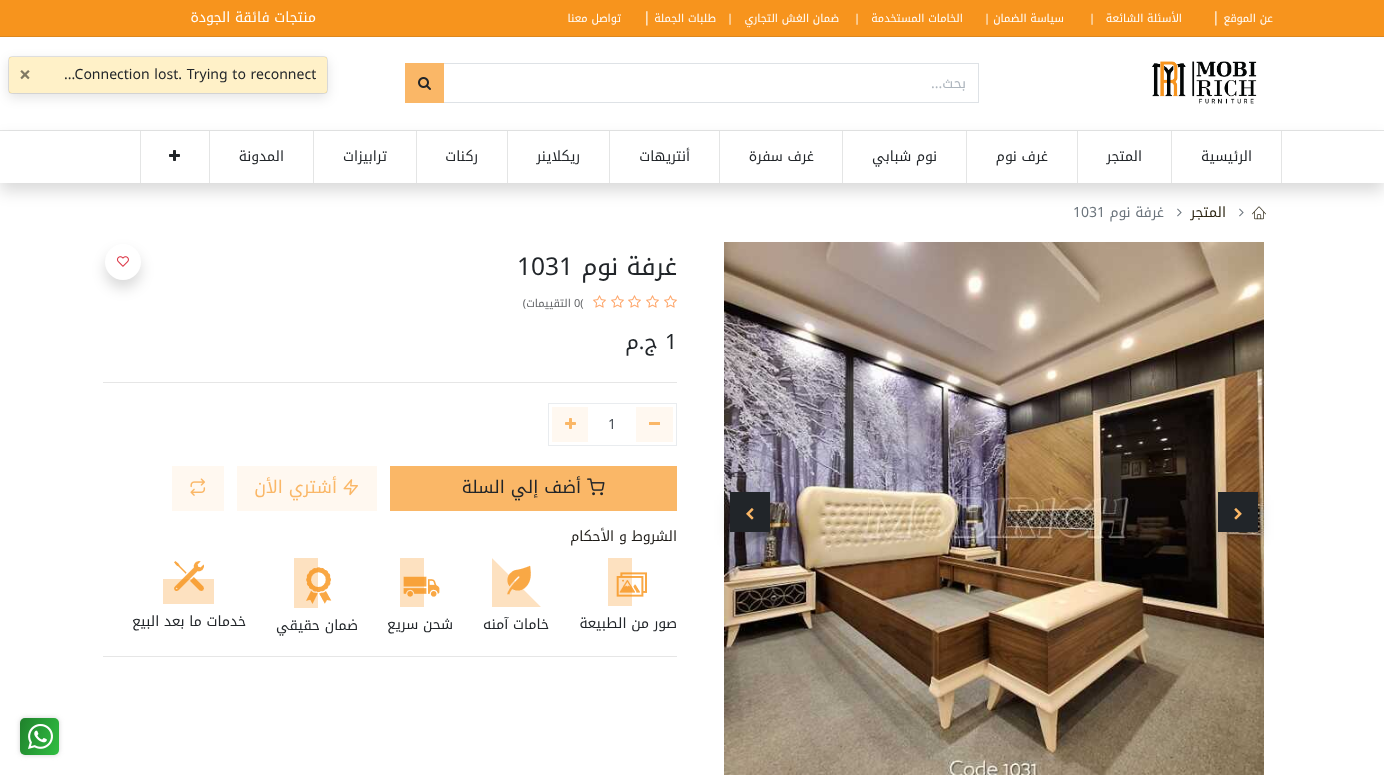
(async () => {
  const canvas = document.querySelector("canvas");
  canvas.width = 1384;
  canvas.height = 775;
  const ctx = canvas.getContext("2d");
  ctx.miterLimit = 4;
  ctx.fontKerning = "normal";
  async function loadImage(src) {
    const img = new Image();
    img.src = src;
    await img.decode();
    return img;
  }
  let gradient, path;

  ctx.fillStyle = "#ffffff";
  ctx.fillRect(0, 0, 1384, 775);
  for (const [x, y, w, h, color] of [
    [0, 0, 1384, 36, "#f7941d"],
    [0, 36, 1384, 1, "#dd871e"],
    [0, 130, 1384, 1, "#e4e5e5"],
  ]) {
    ctx.fillStyle = color;
    ctx.fillRect(x, y, w, h);
  }
  ctx.drawImage(await loadImage("img/1.png"), 1152, 61, 105, 43);
  ctx.strokeStyle = "#dee2e6";
  ctx.strokeRect(443.5, 63.5, 535, 39);
  ctx.fillStyle = "#fab767";
  ctx.fillRect(405, 63, 39, 40);
  ctx.drawImage(await loadImage("img/2.png"), 418, 77, 13, 13);
  ctx.drawImage(await loadImage("img/4.png"), 1252, 206, 14, 14);
  ctx.drawImage(await loadImage("img/5.png"), 1239, 208, 5, 9);
  ctx.drawImage(await loadImage("img/5.png"), 1177, 208, 5, 9);
  ctx.save();
  path = new Path2D("M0 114H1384V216H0ZM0 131H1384V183H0Z");
  ctx.clip(path, "evenodd");
  ctx.fillStyle = "rgba(0, 0, 0, 0.15)";
  ctx.filter = "blur(8px)";
  ctx.beginPath();
  ctx.rect(0, 139, 1384, 52);
  ctx.fill();
  ctx.filter = "none";
  ctx.restore();
  for (const [x, y, w, h, color] of [
    [1281, 131, 1, 52, "#e4e5e5"],
    [1171, 131, 1, 52, "#e4e5e5"],
    [1077, 131, 1, 52, "#e4e5e5"],
    [966, 131, 1, 52, "#e4e5e5"],
    [842, 131, 1, 52, "#e4e5e5"],
    [719, 131, 1, 52, "#e4e5e5"],
    [609, 131, 1, 52, "#e4e5e5"],
    [507, 131, 1, 52, "#e4e5e5"],
    [416, 131, 1, 52, "#e4e5e5"],
    [313, 131, 1, 52, "#e4e5e5"],
    [209, 131, 1, 52, "#e4e5e5"],
    [140, 131, 1, 52, "#e4e5e5"],
  ]) {
    ctx.fillStyle = color;
    ctx.fillRect(x, y, w, h);
  }
  ctx.drawImage(await loadImage("img/3.png"), 169, 150, 11, 11);
  ctx.drawImage(await loadImage("img/6.png"), 724, 242, 540, 533);
  ctx.fillStyle = "rgba(0, 0, 0, 0.15)";
  ctx.filter = "blur(8px)";
  ctx.beginPath();
  ctx.rect(1218, 500, 40, 40);
  ctx.fill();
  ctx.filter = "none";
  ctx.fillStyle = "#212529";
  ctx.fillRect(1218, 492, 40, 40);
  ctx.drawImage(await loadImage("img/7.png"), 1234, 508, 8, 12);
  ctx.fillStyle = "rgba(0, 0, 0, 0.15)";
  ctx.filter = "blur(8px)";
  ctx.beginPath();
  ctx.rect(730, 500, 40, 40);
  ctx.fill();
  ctx.filter = "none";
  ctx.fillStyle = "#212529";
  ctx.fillRect(730, 492, 40, 40);
  ctx.drawImage(await loadImage("img/8.png"), 746, 508, 8, 12);
  ctx.drawImage(await loadImage("img/9.png"), 664, 295, 13, 13);
  ctx.drawImage(await loadImage("img/9.png"), 646, 295, 13, 13);
  ctx.drawImage(await loadImage("img/9.png"), 628, 295, 13, 13);
  ctx.drawImage(await loadImage("img/9.png"), 611, 295, 13, 13);
  ctx.drawImage(await loadImage("img/9.png"), 593, 295, 13, 13);
  ctx.fillStyle = "#e6e6e6";
  ctx.fillRect(103, 382, 574, 1);
  ctx.strokeStyle = "#e9ecef";
  ctx.strokeRect(548.5, 403.5, 128, 42);
  for (const [x, y, w, h, color] of [
    [636, 407, 37, 35, "#fff8f0"],
    [649, 422, 11, 3, "#fab767"],
    [552, 407, 36, 35, "#fff8f0"],
  ]) {
    ctx.fillStyle = color;
    ctx.fillRect(x, y, w, h);
  }
  ctx.drawImage(await loadImage("img/10.png"), 565, 418, 11, 11);
  ctx.fillStyle = "rgba(0, 0, 0, 0.15)";
  ctx.filter = "blur(7px)";
  ctx.beginPath();
  ctx.roundRect(105, 252, 36, 36, 18);
  ctx.fill();
  ctx.filter = "none";
  ctx.fillStyle = "#ffffff";
  ctx.beginPath();
  ctx.arc(123, 262, 18, 0, Math.PI * 2);
  ctx.fill();
  ctx.drawImage(await loadImage("img/11.png"), 116, 256, 13, 11);
  ctx.fillStyle = "#fab767";
  ctx.fillRect(390, 466, 287, 45);
  ctx.drawImage(await loadImage("img/12.png"), 587, 478, 18, 18);
  ctx.fillStyle = "#fff8f0";
  ctx.fillRect(237, 466, 140, 45);
  ctx.drawImage(await loadImage("img/13.png"), 343, 479, 15, 17);
  ctx.fillRect(172, 466, 52, 45);
  ctx.drawImage(await loadImage("img/14.png"), 190, 478, 16, 18);
  ctx.drawImage(await loadImage("img/15.png"), 608, 558, 39, 48);
  ctx.drawImage(await loadImage("img/16.png"), 492, 558, 49, 49);
  ctx.drawImage(await loadImage("img/17.png"), 400, 558, 40, 49);
  ctx.drawImage(await loadImage("img/18.png"), 294, 558, 38, 50);
  ctx.drawImage(await loadImage("img/19.png"), 163, 561, 51, 43);
  ctx.fillStyle = "#e6e6e6";
  ctx.fillRect(103, 656, 574, 1);
  ctx.fillStyle = "rgba(0, 0, 0, 0.1)";
  ctx.filter = "blur(6px)";
  ctx.beginPath();
  ctx.roundRect(8, 60, 320, 38, 4);
  ctx.fill();
  ctx.filter = "none";
  ctx.fillStyle = "#ffc107";
  ctx.beginPath();
  ctx.roundRect(9, 57, 318, 36, 3);
  ctx.fill();
  ctx.beginPath();
  ctx.roundRect(8.5, 56.5, 319, 37, 3.5);
  ctx.strokeStyle = "rgba(0, 0, 0, 0.1)";
  ctx.stroke();
  ctx.fillStyle = "rgba(255, 255, 255, 0.78)";
  ctx.beginPath();
  ctx.roundRect(9, 57, 318, 36, 3);
  ctx.fill();
  ctx.fillStyle = "#d3d3d3";
  ctx.filter = "blur(2.5px)";
  ctx.beginPath();
  ctx.roundRect(20, 718, 39, 37, 5);
  ctx.fill();
  ctx.filter = "none";
  gradient = ctx.createLinearGradient(16, 727, 63, 746);
  gradient.addColorStop(0, "#20802c");
  gradient.addColorStop(0, "#20802c");
  gradient.addColorStop(1, "#30bf42");
  ctx.fillStyle = gradient;
  ctx.beginPath();
  ctx.roundRect(20, 718, 39, 37, 5);
  ctx.fill();
  ctx.drawImage(await loadImage("img/20.png"), 28, 724, 25, 25);
  ctx.direction = "rtl";
  ctx.font = "11px Noto Kufi Arabic";
  ctx.fillStyle = "#ffffff";
  ctx.fillText("عن الموقع", 1273, 22);
  ctx.direction = "ltr";
  ctx.font = "14px Noto Kufi Arabic";
  ctx.fillText("|", 1212, 22);
  ctx.direction = "rtl";
  ctx.font = "11px Noto Kufi Arabic";
  ctx.fillText("الأسئلة الشائعة", 1182, 22);
  ctx.direction = "ltr";
  ctx.fillText("|", 1089, 22);
  ctx.direction = "rtl";
  ctx.fillText("سياسة الضمان", 1064, 22);
  ctx.direction = "ltr";
  ctx.fillText("|", 984, 22);
  ctx.direction = "rtl";
  ctx.fillText("الخامات المستخدمة", 963, 22);
  ctx.direction = "ltr";
  ctx.fillText("|", 854, 22);
  ctx.direction = "rtl";
  ctx.fillText("ضمان الغش التجاري", 839, 22);
  ctx.direction = "ltr";
  ctx.fillText("|", 727, 22);
  ctx.direction = "rtl";
  ctx.fillText("طلبات الجملة", 716, 22);
  ctx.direction = "ltr";
  ctx.font = "14px Noto Kufi Arabic";
  ctx.fillText("|", 643, 22);
  ctx.direction = "rtl";
  ctx.font = "11px Noto Kufi Arabic";
  ctx.fillText("تواصل معنا", 621, 22);
  ctx.font = "14px Noto Kufi Arabic";
  ctx.fillText("منتجات فائقة الجودة", 316, 22);
  ctx.fillStyle = "#adb5bd";
  ctx.fillText("بحث...", 966, 88);
  ctx.fillStyle = "#212529";
  for (const [text, x, y] of [
    ["الرئيسية", 1252, 161],
    ["المتجر", 1142, 161],
    ["غرف نوم", 1048, 161],
    ["نوم شبابي", 937, 161],
    ["غرف سفرة", 814, 161],
    ["أنتريهات", 690, 161],
    ["ريكلاينر", 580, 161],
    ["ركنات", 478, 161],
    ["ترابيزات", 387, 161],
    ["المدونة", 284, 161],
  ]) {
    ctx.fillText(text, x, y);
  }
  ctx.fillStyle = "#2e2714";
  ctx.fillText("المتجر", 1226, 217);
  ctx.fillStyle = "#6c757d";
  ctx.fillText("غرفة نوم", 1164, 217);
  ctx.direction = "ltr";
  ctx.fillText("1031", 1073, 217);
  ctx.direction = "rtl";
  ctx.font = "24.5px Noto Kufi Arabic";
  ctx.fillStyle = "#212529";
  ctx.fillText("غرفة نوم", 677, 275);
  ctx.direction = "ltr";
  ctx.fillText("1031", 517, 275);
  ctx.font = "11px Noto Kufi Arabic";
  ctx.fillStyle = "#646669";
  ctx.fillText("0(", 574, 307);
  ctx.direction = "rtl";
  ctx.fillText("التقييمات)", 571, 307);
  ctx.direction = "ltr";
  ctx.font = "21px Noto Kufi Arabic";
  ctx.fillStyle = "#212529";
  ctx.fillText("1", 665, 349);
  ctx.direction = "rtl";
  ctx.fillText("ج.م", 658, 349);
  ctx.direction = "ltr";
  ctx.font = "14px Noto Kufi Arabic";
  ctx.fillStyle = "#495057";
  ctx.fillText("1", 608, 429);
  ctx.direction = "rtl";
  ctx.font = "17.5px Noto Kufi Arabic";
  ctx.fillStyle = "#212529";
  ctx.fillText("أضف إلي السلة", 581, 493);
  ctx.fillStyle = "#fab767";
  ctx.fillText("أشتري الأن", 337, 493);
  ctx.font = "14px Noto Kufi Arabic";
  ctx.fillStyle = "#1d1a16";
  ctx.fillText("الشروط و الأحكام", 677, 541);
  ctx.fillStyle = "#212529";
  for (const [text, x, y] of [
    ["صور من الطبيعة", 677, 628],
    ["خامات آمنه", 549, 629],
    ["شحن سريع", 453, 629],
    ["ضمان حقيقي", 358, 630],
    ["خدمات ما بعد البيع", 246, 626],
  ]) {
    ctx.fillText(text, x, y);
  }
  ctx.direction = "ltr";
  ctx.fillText("...Connection lost. Trying to reconnect", 64, 79);
  ctx.font = "bold 21px Noto Kufi Arabic";
  ctx.fillStyle = "#807964";
  ctx.fillText("×", 19, 82);
})();
